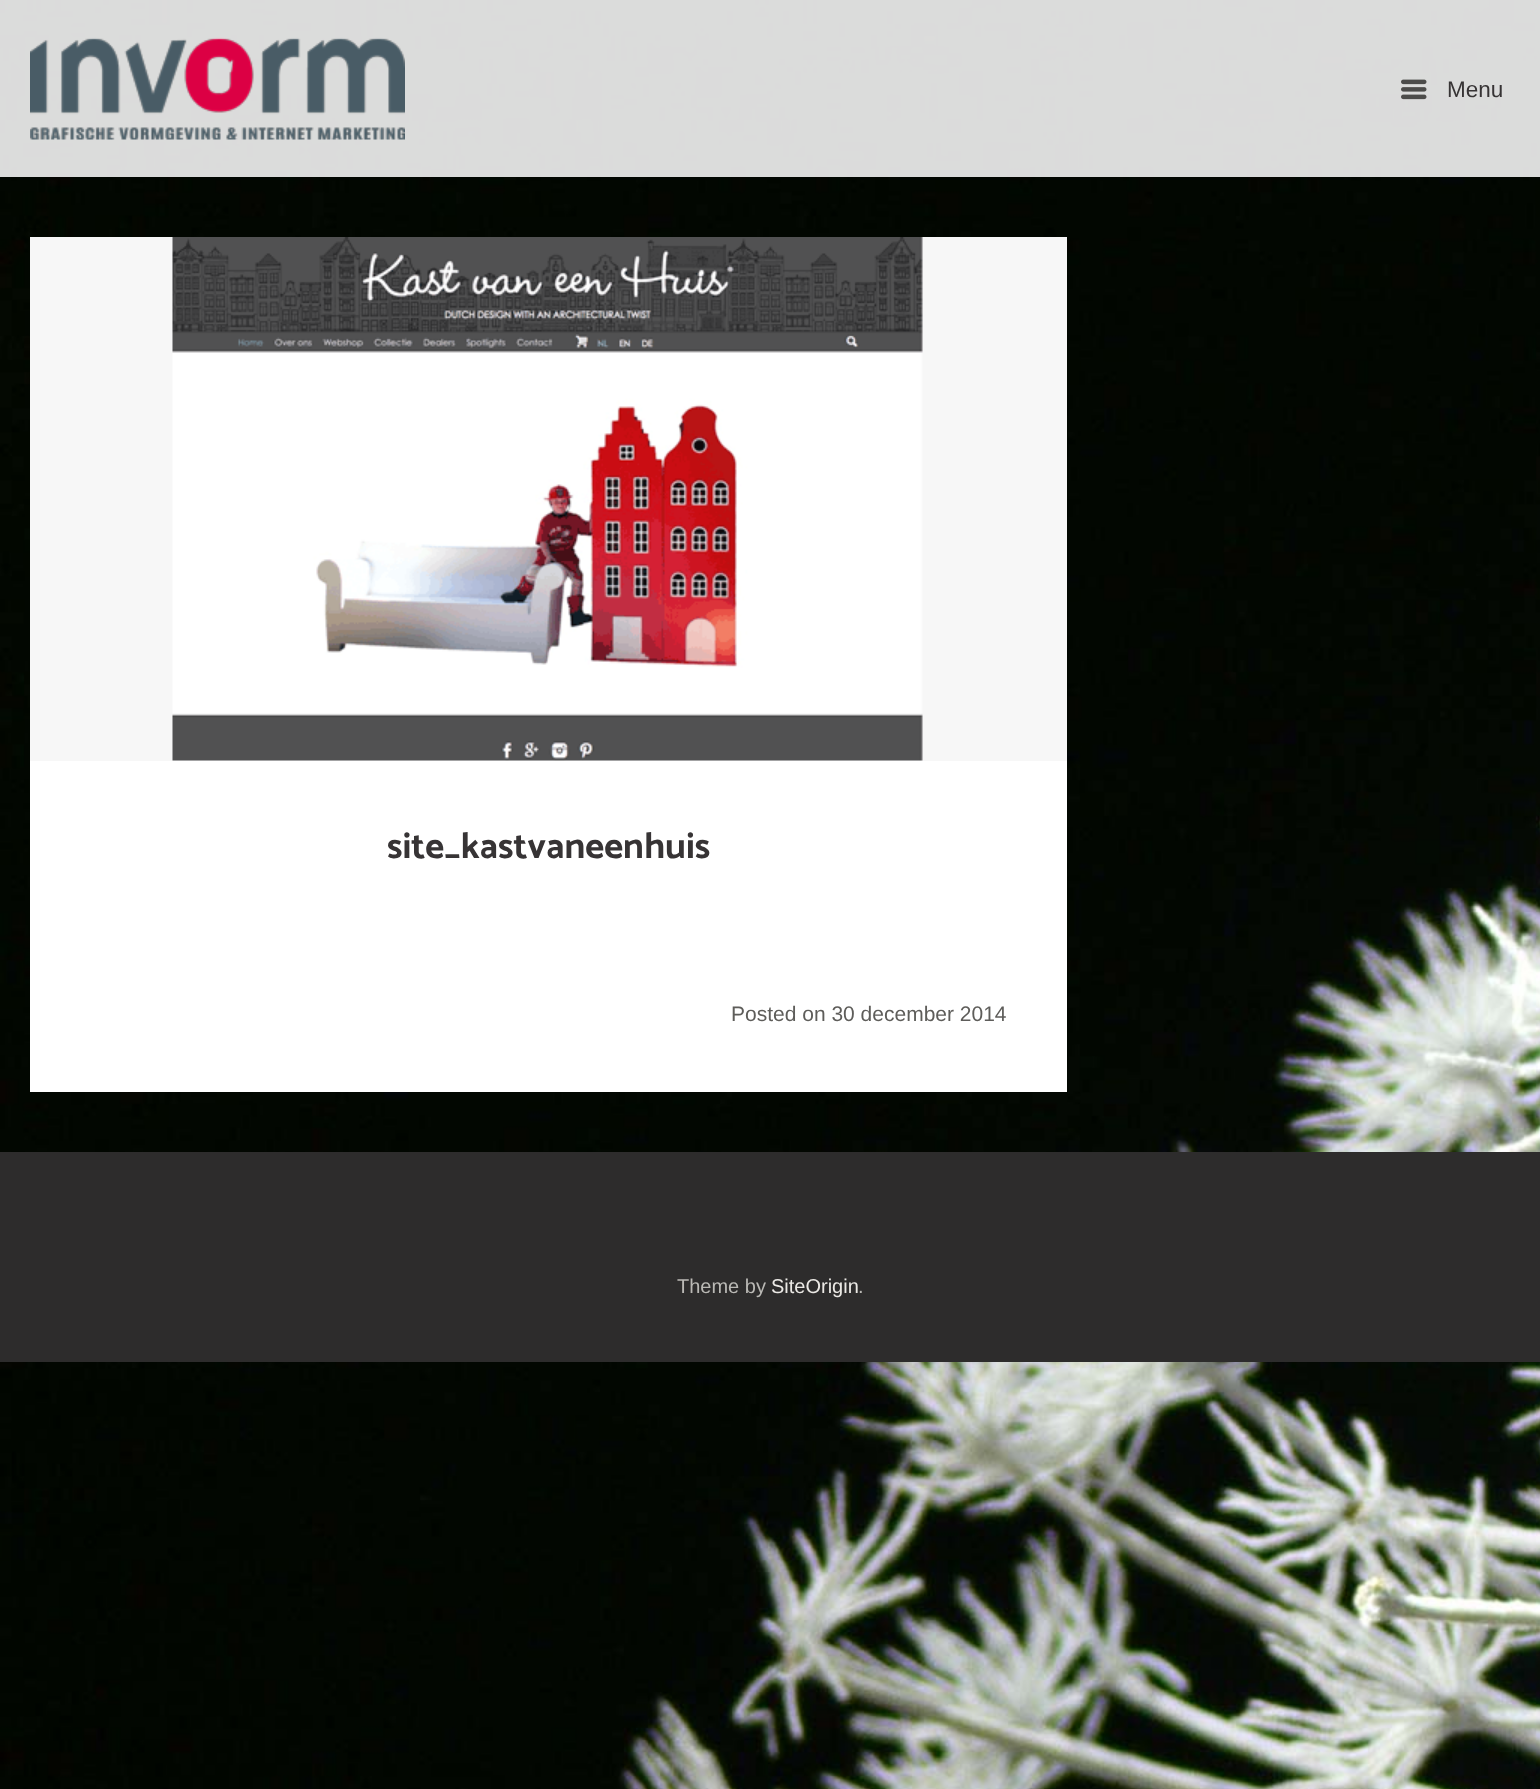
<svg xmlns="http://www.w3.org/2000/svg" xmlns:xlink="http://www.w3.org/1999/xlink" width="1540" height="1789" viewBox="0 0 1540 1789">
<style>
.cls-1{font:22.5px Liberation Sans;fill:#373435}
.cls-2{font:100 36.75px Catamaran;fill:#373435}
.cls-3{font:21px Liberation Sans;fill:#5e5d5a}
.cls-4{font:20px Liberation Sans;fill:#bab9b5}
.cls-5{font:20px Liberation Sans;fill:#ebe9e5}
</style>
<rect width="100%" height="100%" fill="#ffffff"/>
<image xlink:href="image0.png" x="0" y="0" width="1540" height="1789"/>
<rect fill="#ffffff" fill-opacity="0.86" x="0" y="0" width="1540" height="177"/>
<image xlink:href="image1.png" x="30" y="37" width="375" height="103"/>
<image xlink:href="image2.png" x="1401" y="79" width="26" height="21"/>
<rect fill="#ffffff" x="30" y="761" width="1037" height="331"/>
<rect fill="#f7f7f7" x="30" y="237" width="1037" height="524"/>
<image xlink:href="image3.png" x="172" y="237" width="751" height="524"/>
<rect fill="#2d2c2c" x="0" y="1152" width="1540" height="210"/>
<text class="cls-1" x="1447" y="97">Menu</text>
<text class="cls-2" x="387" y="858">site_kastvaneenhuis</text>
<text class="cls-3" x="731" y="1021">Posted on 30 december 2014</text>
<text class="cls-4" x="677" y="1293">Theme by</text>
<text class="cls-5" x="771" y="1293">SiteOrigin</text>
<text class="cls-4" x="858" y="1293">.</text>
</svg>
